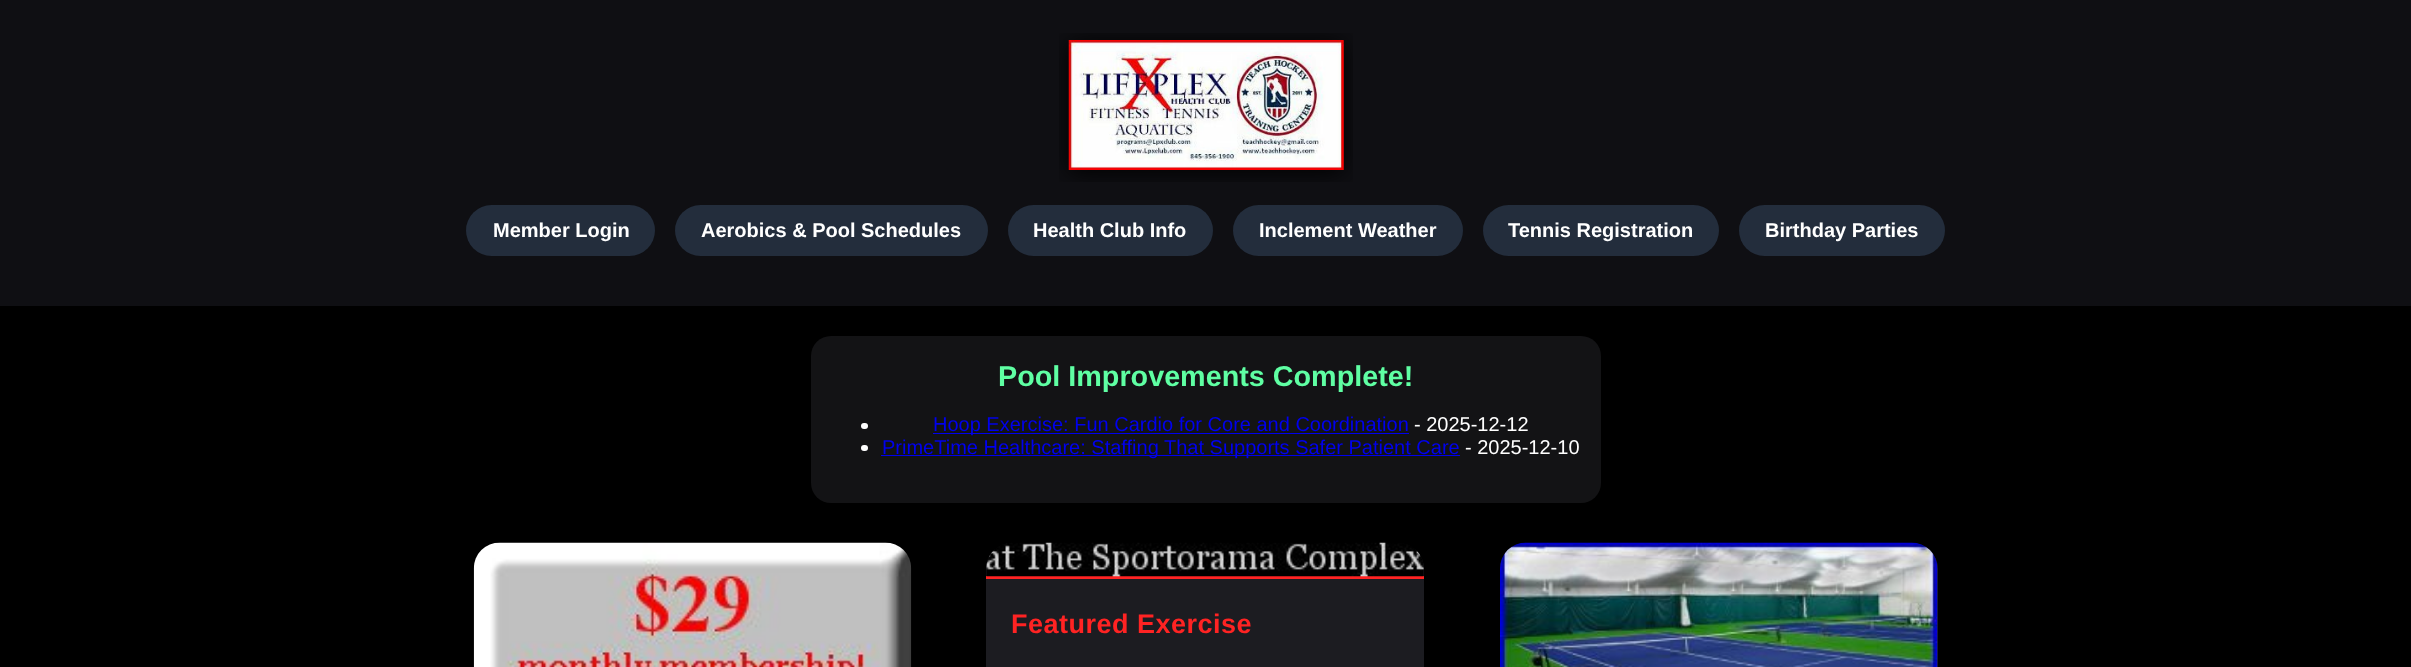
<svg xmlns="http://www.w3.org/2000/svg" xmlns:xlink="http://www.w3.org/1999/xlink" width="2411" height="667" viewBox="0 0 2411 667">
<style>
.cls-1{font:bold 20px Liberation Sans;fill:#ffffff}
.cls-2{font:bold 28.75px Liberation Sans;fill:#5fffa3}
.cls-3{font:20px Liberation Sans;fill:#0000ee}
.cls-4{font:20px Liberation Sans;fill:#ffffff}
.cls-5{font:bold 27px Liberation Sans;letter-spacing:0.5px;fill:#ff2323}
</style>
<rect width="100%" height="100%" fill="#000000"/>
<rect fill="#0f0f13" x="0" y="0" width="2411" height="306"/>
<image xlink:href="image0.png" x="1059" y="33" width="294" height="149"/>
<rect fill="#232d3c" x="466" y="205" width="189" height="51" rx="25.5"/>
<rect fill="#232d3c" x="675" y="205" width="313" height="51" rx="25.5"/>
<rect fill="#232d3c" x="1008" y="205" width="205" height="51" rx="25.5"/>
<rect fill="#232d3c" x="1233" y="205" width="230" height="51" rx="25.5"/>
<rect fill="#232d3c" x="1483" y="205" width="236" height="51" rx="25.5"/>
<rect fill="#232d3c" x="1739" y="205" width="206" height="51" rx="25.5"/>
<rect fill="#131315" x="811" y="336" width="790" height="167" rx="20"/>
<rect fill="#ffffff" x="861" y="423" width="7" height="6" rx="3"/>
<rect fill="#0000ee" x="933" y="433" width="476" height="1"/>
<rect fill="#ffffff" x="861" y="445" width="7" height="6" rx="3"/>
<rect fill="#0000ee" x="881" y="455" width="579" height="1"/>
<image xlink:href="image1.png" x="473" y="542" width="439" height="125"/>
<rect fill="#1c1c21" x="986" y="543" width="438" height="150" rx="26"/>
<rect fill="#ff2323" x="986" y="576" width="438" height="3"/>
<image xlink:href="image2.png" x="986" y="542" width="438" height="35"/>
<rect fill="#1c1c21" x="1500" y="543" width="438" height="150" rx="26"/>
<image xlink:href="image3.png" x="1500" y="542" width="438" height="125"/>
<text class="cls-1" x="493" y="237">Member Login</text>
<text class="cls-1" x="701" y="237">Aerobics &amp; Pool Schedules</text>
<text class="cls-1" x="1033" y="237">Health Club Info</text>
<text class="cls-1" x="1259" y="237">Inclement Weather</text>
<text class="cls-1" x="1508" y="237">Tennis Registration</text>
<text class="cls-1" x="1765" y="237">Birthday Parties</text>
<text class="cls-2" x="998" y="386">Pool Improvements Complete!</text>
<text class="cls-3" x="933" y="431">Hoop Exercise: Fun Cardio for Core and Coordination</text>
<text class="cls-4" x="1414" y="431">- 2025-12-12</text>
<text class="cls-3" x="882" y="454">PrimeTime Healthcare: Staffing That Supports Safer Patient Care</text>
<text class="cls-4" x="1465" y="454">- 2025-12-10</text>
<text class="cls-5" x="1011" y="633">Featured Exercise</text>
</svg>
